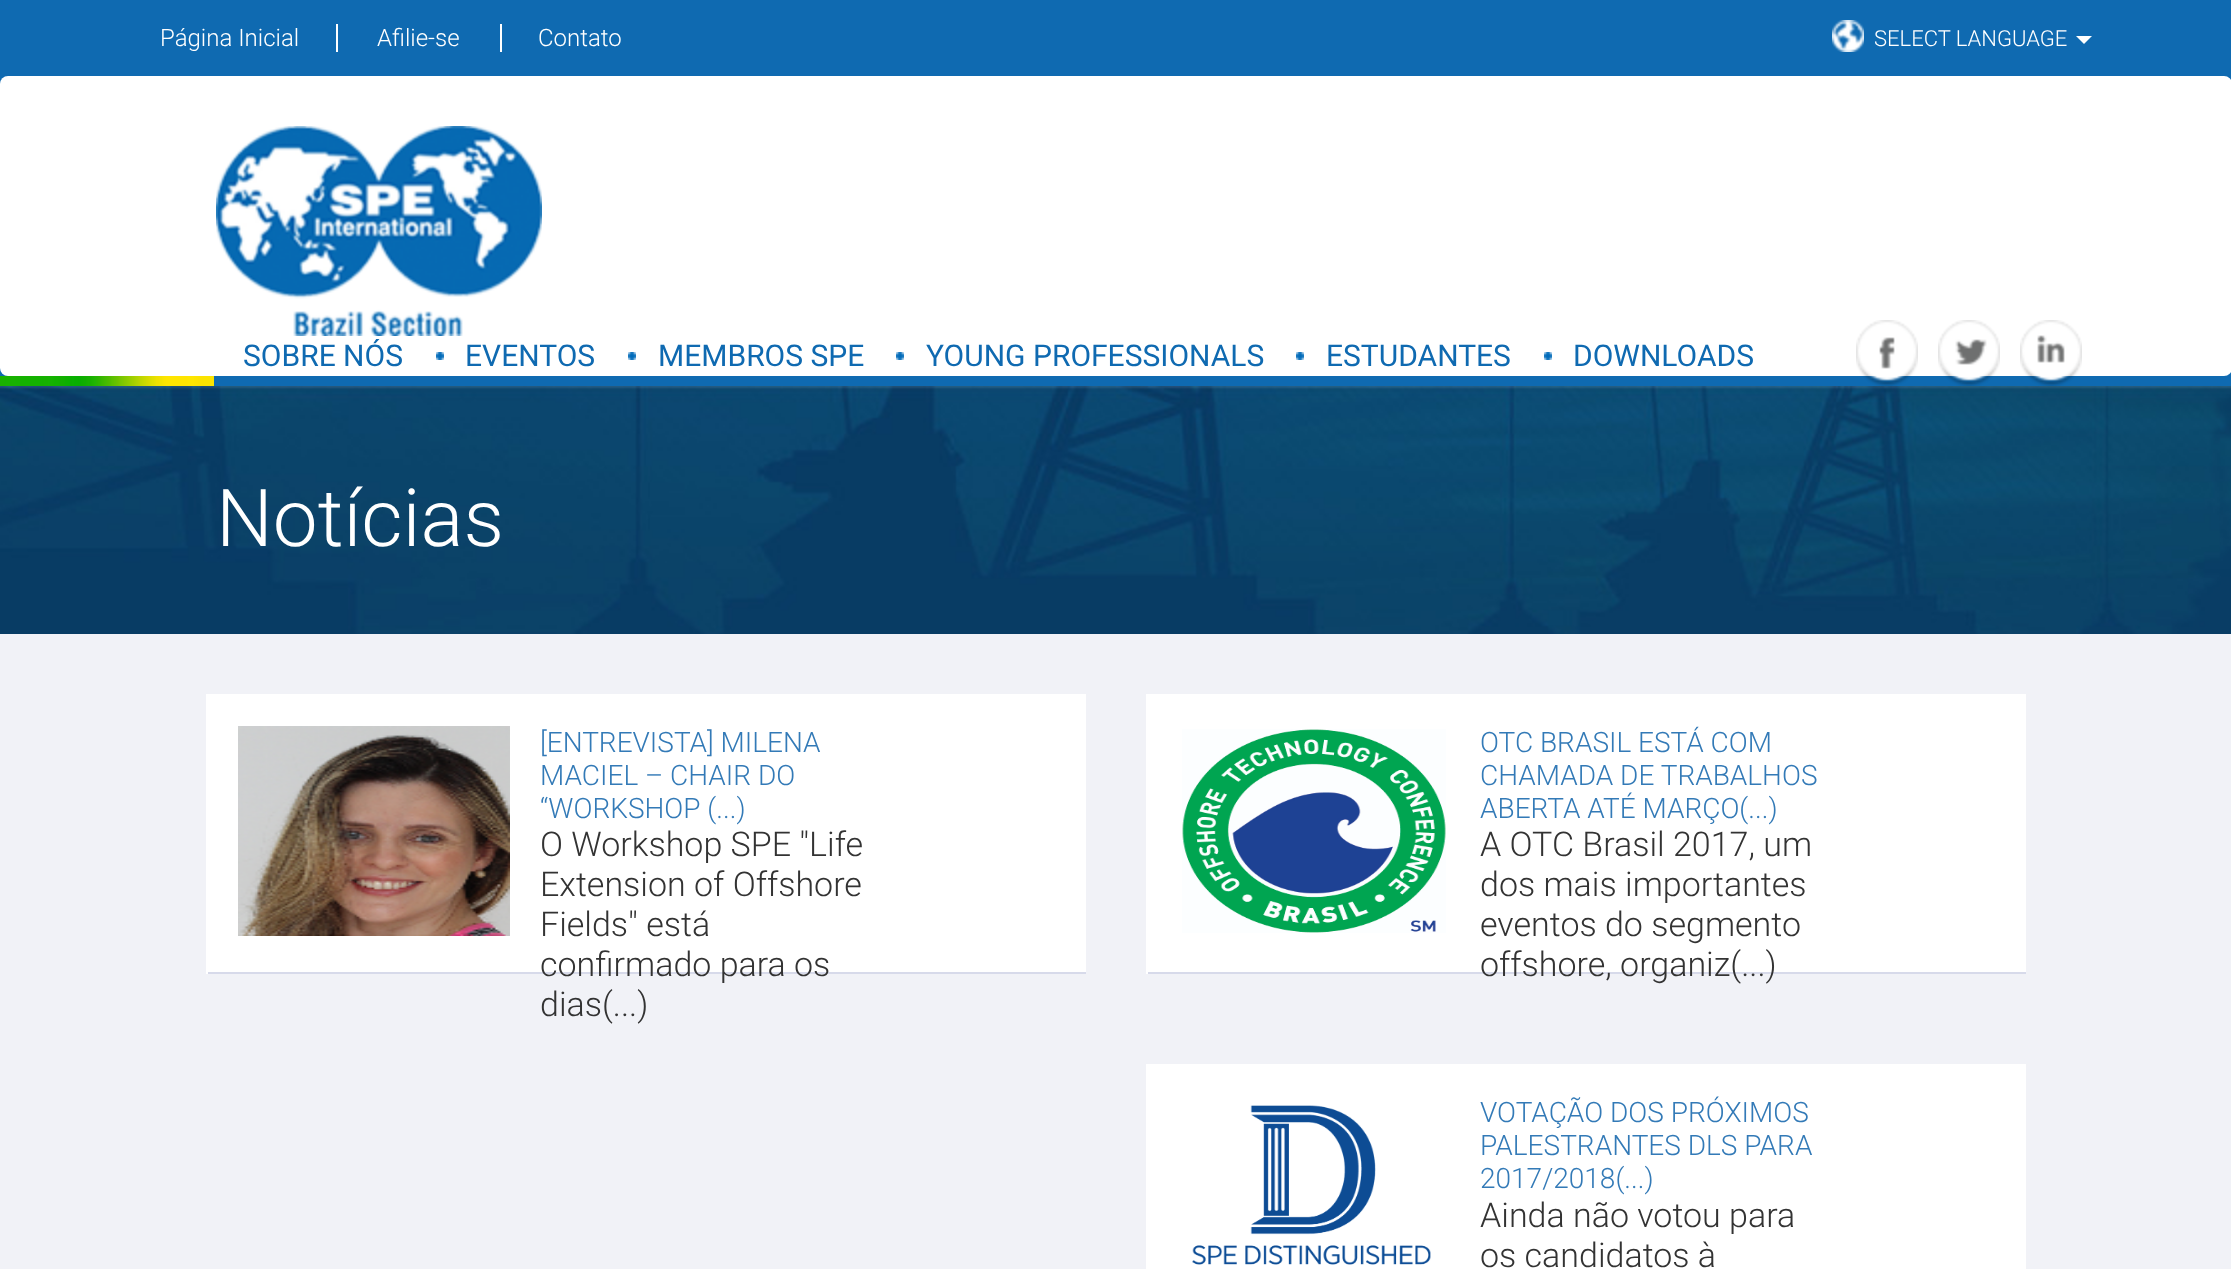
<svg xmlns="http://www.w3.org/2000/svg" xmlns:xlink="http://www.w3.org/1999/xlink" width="2231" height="1269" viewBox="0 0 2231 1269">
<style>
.cls-1{font:300 24px Roboto;fill:#ffffff}
.cls-2{font:300 22px Roboto;fill:#ffffff}
.cls-3{font:30px Roboto;fill:#0f6ab1}
.cls-4{font:300 80px Roboto;fill:#ffffff}
.cls-5{font:300 28px Roboto;fill:#337ab7}
.cls-6{font:300 34px Roboto;fill:#333333}
</style>
<rect width="100%" height="100%" fill="#f1f2f7"/>
<rect fill="#0f6ab1" x="0" y="0" width="2231" height="386"/>
<rect fill="#ffffff" x="500" y="24" width="2" height="28"/>
<rect fill="#ffffff" x="336" y="24" width="2" height="28"/>
<image xlink:href="image0.png" x="1832" y="20" width="32" height="32"/>
<path fill="#ffffff" d="M2076 36H2092L2084 44Z"/>
<rect fill="#ffffff" x="0" y="76" width="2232" height="300" rx="8"/>
<image xlink:href="image1.png" x="216" y="126" width="326" height="210"/>
<image xlink:href="image2.png" x="436" y="352" width="8" height="8"/>
<image xlink:href="image2.png" x="628" y="352" width="8" height="8"/>
<image xlink:href="image2.png" x="896" y="352" width="8" height="8"/>
<image xlink:href="image2.png" x="1296" y="352" width="8" height="8"/>
<image xlink:href="image2.png" x="1544" y="352" width="8" height="8"/>
<image xlink:href="image3.png" x="1856" y="320" width="62" height="66"/>
<image xlink:href="image4.png" x="1938" y="320" width="62" height="66"/>
<image xlink:href="image5.png" x="2020" y="320" width="62" height="66"/>
<image xlink:href="image6.png" x="0" y="376" width="214" height="10"/>
<image xlink:href="image7.png" x="0" y="386" width="2231" height="248"/>
<rect fill="#ffffff" x="208" y="694" width="878" height="278"/>
<rect fill="#d7daea" x="206" y="972" width="880" height="2"/>
<rect fill="#ffffff" x="206" y="694" width="2" height="280"/>
<image xlink:href="image8.png" x="238" y="726" width="272" height="210"/>
<rect fill="#ffffff" x="1148" y="694" width="878" height="278"/>
<rect fill="#d7daea" x="1146" y="972" width="880" height="2"/>
<rect fill="#ffffff" x="1146" y="694" width="2" height="280"/>
<image xlink:href="image9.png" x="1182" y="729" width="264" height="204"/>
<rect fill="#ffffff" x="1146" y="1064" width="880" height="205"/>
<image xlink:href="image10.png" x="1192" y="1105" width="239" height="160"/>
<text class="cls-1" x="160" y="46">Página Inicial</text>
<text class="cls-1" x="377" y="46">Afilie-se</text>
<text class="cls-1" x="538" y="46">Contato</text>
<text class="cls-2" x="1874" y="46">SELECT LANGUAGE</text>
<text class="cls-3" x="243" y="366">SOBRE NÓS</text>
<text class="cls-3" x="465" y="366">EVENTOS</text>
<text class="cls-3" x="658" y="366">MEMBROS SPE</text>
<text class="cls-3" x="926" y="366">YOUNG PROFESSIONALS</text>
<text class="cls-3" x="1326" y="366">ESTUDANTES</text>
<text class="cls-3" x="1573" y="366">DOWNLOADS</text>
<text class="cls-4" x="216" y="546">Notícias</text>
<text class="cls-5"><tspan x="540" y="752">[ENTREVISTA] MILENA</tspan><tspan x="540" y="785">MACIEL – CHAIR DO</tspan><tspan x="540" y="818">“WORKSHOP (...)</tspan></text>
<text class="cls-6"><tspan x="540" y="856">O Workshop SPE "Life</tspan><tspan x="540" y="896">Extension of Offshore</tspan><tspan x="540" y="936">Fields" está</tspan><tspan x="540" y="976">confirmado para os</tspan><tspan x="540" y="1016">dias(...)</tspan></text>
<text class="cls-5"><tspan x="1480" y="752">OTC BRASIL ESTÁ COM</tspan><tspan x="1480" y="785">CHAMADA DE TRABALHOS</tspan><tspan x="1480" y="818">ABERTA ATÉ MARÇO(...)</tspan></text>
<text class="cls-6"><tspan x="1480" y="856">A OTC Brasil 2017, um</tspan><tspan x="1480" y="896">dos mais importantes</tspan><tspan x="1480" y="936">eventos do segmento</tspan><tspan x="1480" y="976">offshore, organiz(...)</tspan></text>
<text class="cls-5"><tspan x="1480" y="1122">VOTAÇÃO DOS PRÓXIMOS</tspan><tspan x="1480" y="1155">PALESTRANTES DLS PARA</tspan><tspan x="1480" y="1188">2017/2018(...)</tspan></text>
<text class="cls-6"><tspan x="1480" y="1227">Ainda não votou para</tspan><tspan x="1480" y="1267">os candidatos à</tspan></text>
</svg>
